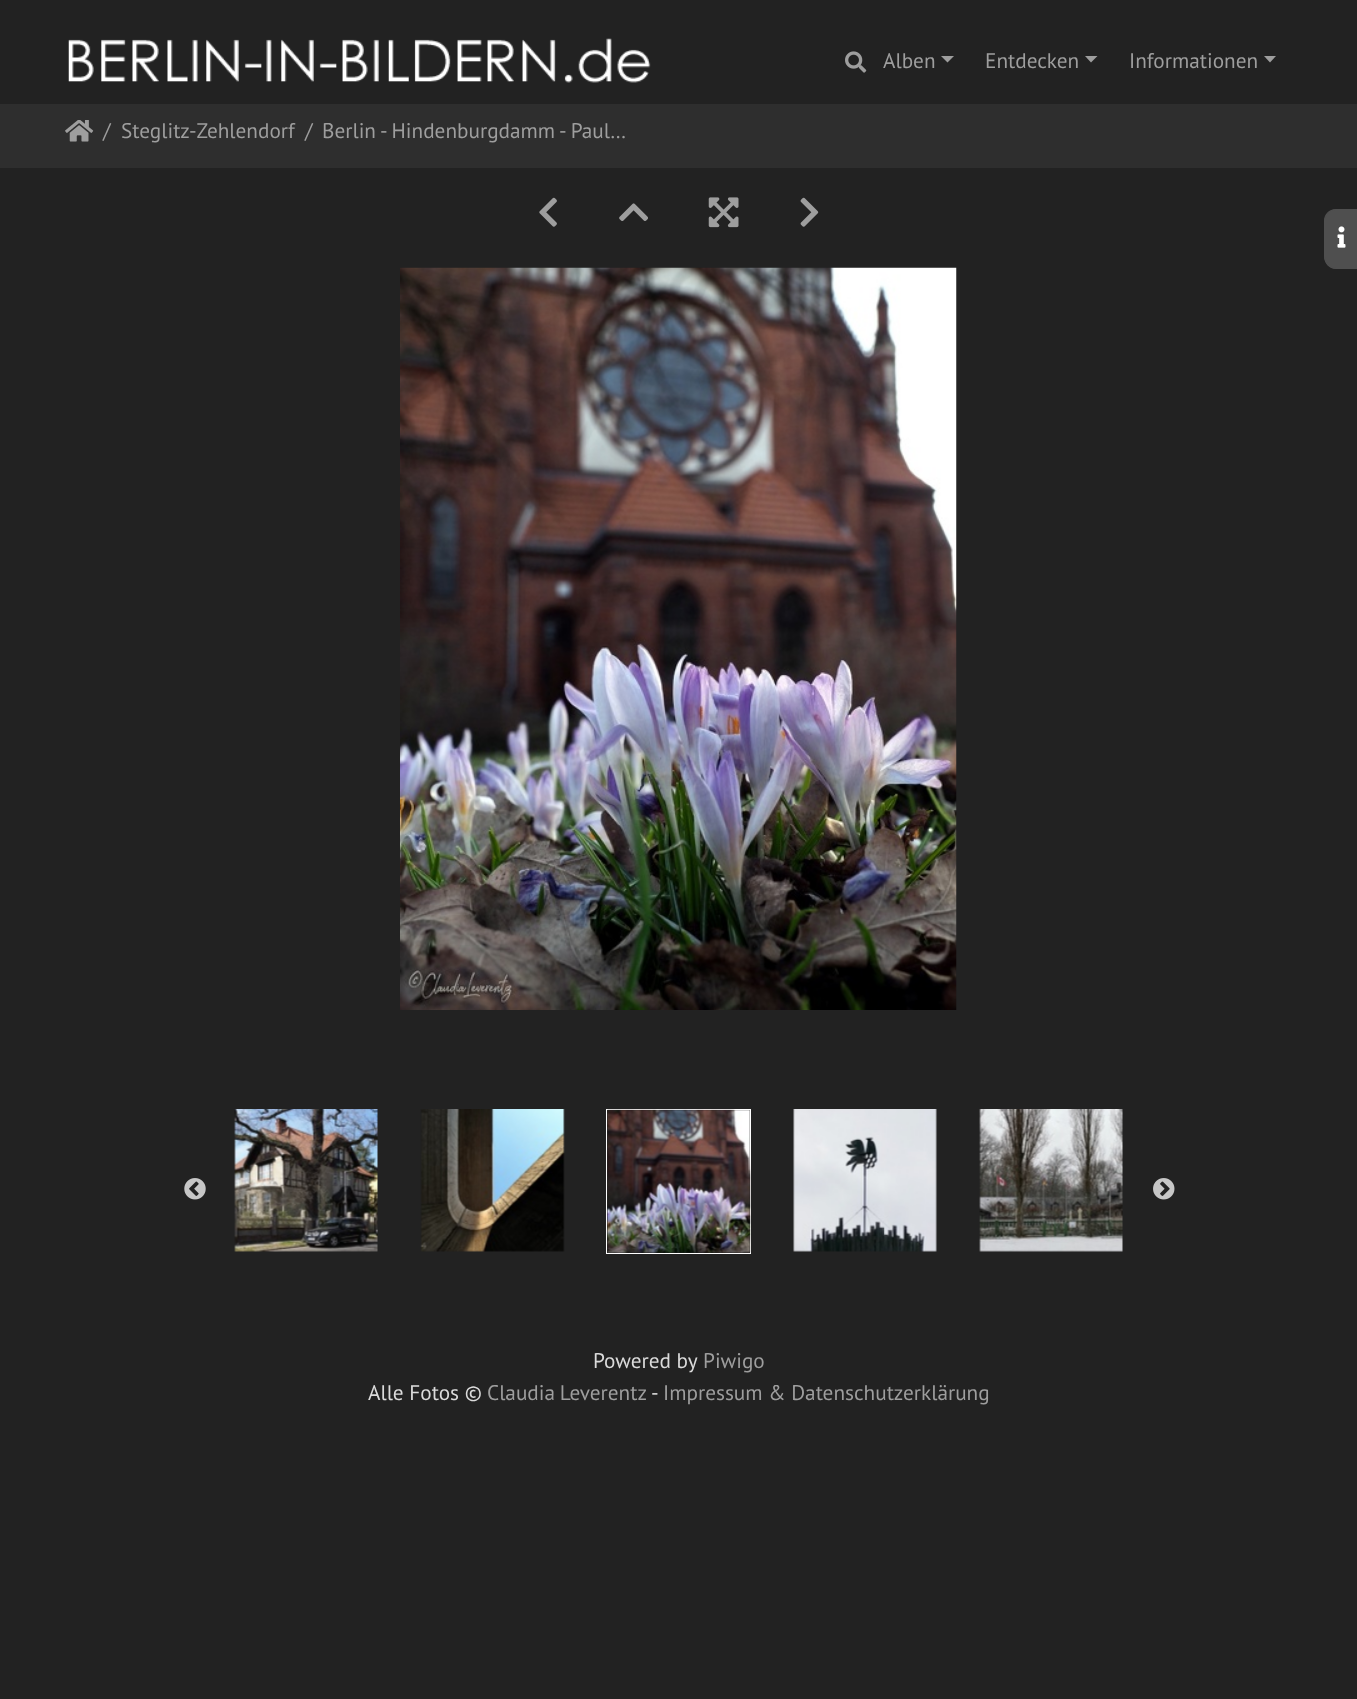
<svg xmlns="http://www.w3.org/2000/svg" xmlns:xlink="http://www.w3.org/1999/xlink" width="1357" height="1699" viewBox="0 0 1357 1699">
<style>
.cls-1{font:21.25px PT Sans;fill:#9e9e9e}
.cls-2{font:21.25px PT Sans;fill:#dbdbdb}
</style>
<rect width="100%" height="100%" fill="#222222"/>
<image xlink:href="image0.png" x="68" y="38" width="583" height="45"/>
<image xlink:href="image1.png" x="845" y="51" width="22" height="22"/>
<path fill="#9e9e9e" d="M941 56H954L947.5 62.5Z"/>
<path fill="#9e9e9e" d="M1085 56H1097.5L1091 62.5Z"/>
<path fill="#9e9e9e" d="M1264 56H1276L1270 62.5Z"/>
<rect fill="#2e2e2e" x="0" y="104" width="1357" height="64"/>
<image xlink:href="image2.png" x="65" y="120" width="29" height="22"/>
<image xlink:href="image3.png" x="539" y="197" width="18" height="30"/>
<image xlink:href="image4.png" x="619" y="203" width="29" height="18"/>
<image xlink:href="image5.png" x="708" y="197" width="31" height="31"/>
<image xlink:href="image6.png" x="800" y="197" width="19" height="30"/>
<path fill="#4f4f4f" d="M1337 209H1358V269H1337C1330 269 1324 263 1324 256V222C1324 215 1330 209 1337 209Z"/>
<path fill="#4f4f4f" fill-rule="evenodd" d="M1336 209H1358V269H1336C1329 269 1324 263 1324 256V221C1324 214 1329 209 1336 209ZM1336 210H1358V268H1336C1330 268 1325 262 1325 256V221C1325 215 1330 210 1336 210Z"/>
<image xlink:href="image7.png" x="1337" y="226" width="9" height="22"/>
<image xlink:href="image8.png" x="400" y="267" width="557" height="743"/>
<image xlink:href="image9.png" x="184" y="1178" width="22" height="22"/>
<image xlink:href="image10.png" x="234" y="1109" width="144" height="143"/>
<image xlink:href="image11.png" x="420" y="1109" width="145" height="143"/>
<rect fill="none" stroke="#ffffff" x="606.5" y="1109.5" width="144" height="144"/>
<image xlink:href="image12.png" x="607" y="1109" width="144" height="144"/>
<image xlink:href="image13.png" x="793" y="1109" width="144" height="143"/>
<image xlink:href="image14.png" x="979" y="1109" width="144" height="143"/>
<image xlink:href="image15.png" x="1153" y="1178" width="22" height="22"/>
<text class="cls-1" x="883" y="68">Alben</text>
<text class="cls-1" x="985" y="68">Entdecken</text>
<text class="cls-1" x="1129" y="68">Informationen</text>
<text class="cls-1" x="103" y="138">/</text>
<text class="cls-1" x="121" y="138">Steglitz-Zehlendorf</text>
<text class="cls-1" x="305" y="138">/</text>
<text class="cls-1" x="322" y="138">Berlin - Hindenburgdamm - Paul…</text>
<text class="cls-2" x="593" y="1368">Powered by</text>
<text class="cls-1" x="703" y="1368">Piwigo</text>
<text class="cls-2" x="368" y="1400">Alle Fotos ©</text>
<text class="cls-1" x="487" y="1400" word-spacing="-1">Claudia Leverentz</text>
<text class="cls-2" x="651" y="1400">-</text>
<text class="cls-1" x="663" y="1400">Impressum &amp; Datenschutzerklärung</text>
</svg>
